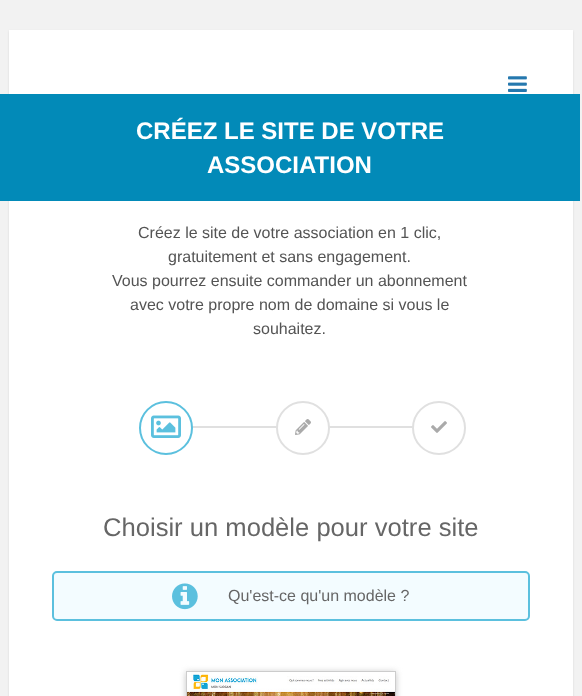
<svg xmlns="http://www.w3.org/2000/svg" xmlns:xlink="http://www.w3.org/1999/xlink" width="582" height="696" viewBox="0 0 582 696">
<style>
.cls-1{font:bold 24px Liberation Sans;fill:#ffffff}
.cls-2{font:16px Liberation Sans;fill:#545454}
.cls-3{font:25.6px Liberation Sans;fill:#666666}
.cls-4{font:16px Liberation Sans;fill:#666666}
</style>
<rect width="100%" height="100%" fill="#f2f2f2"/>
<rect fill="#000000" fill-opacity="0.1" filter="blur(1px)" x="9" y="31" width="564" height="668"/>
<rect fill="#ffffff" x="9" y="30" width="564" height="666"/>
<rect fill="#028ab8" filter="blur(0.5px)" x="0" y="94" width="580" height="107"/>
<image xlink:href="image0.png" x="508" y="76" width="19" height="16"/>
<rect fill="#028ab8" x="0" y="94" width="580" height="107"/>
<rect fill="#e0e0e0" x="192" y="426" width="221" height="2"/>
<circle fill="#ffffff" stroke="#5bc0de" stroke-width="2" cx="166" cy="428" r="26"/>
<image xlink:href="image1.png" x="151" y="415" width="30" height="23"/>
<circle fill="#ffffff" stroke="#e0e0e0" stroke-width="2" cx="303" cy="428" r="26"/>
<image xlink:href="image2.png" x="295" y="419" width="16" height="16"/>
<circle fill="#ffffff" stroke="#e0e0e0" stroke-width="2" cx="439" cy="428" r="26"/>
<image xlink:href="image3.png" x="431" y="421" width="16" height="12"/>
<rect fill="#f3fcff" stroke="#5bc0de" stroke-width="2" x="53" y="572" width="476" height="48" rx="4"/>
<image xlink:href="image4.png" x="172" y="583" width="26" height="27"/>
<rect fill="#c3c3c3" filter="blur(3px)" x="186" y="672" width="210" height="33"/>
<rect fill="none" stroke="#cccccc" x="186.5" y="671.5" width="209" height="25"/>
<image xlink:href="image5.png" x="187" y="672" width="208" height="24"/>
<text class="cls-1" x="136" y="139">CRÉEZ LE SITE DE VOTRE</text>
<text class="cls-1" x="207" y="173">ASSOCIATION</text>
<text class="cls-2" x="138" y="238">Créez le site de votre association en 1 clic,</text>
<text class="cls-2" x="168" y="262">gratuitement et sans engagement.</text>
<text class="cls-2" x="112" y="286">Vous pourrez ensuite commander un abonnement</text>
<text class="cls-2" x="130" y="310">avec votre propre nom de domaine si vous le</text>
<text class="cls-2" x="253" y="334">souhaitez.</text>
<text class="cls-3" x="103" y="536">Choisir un modèle pour votre site</text>
<text class="cls-4" x="228" y="601">Qu'est-ce qu'un modèle ?</text>
</svg>
